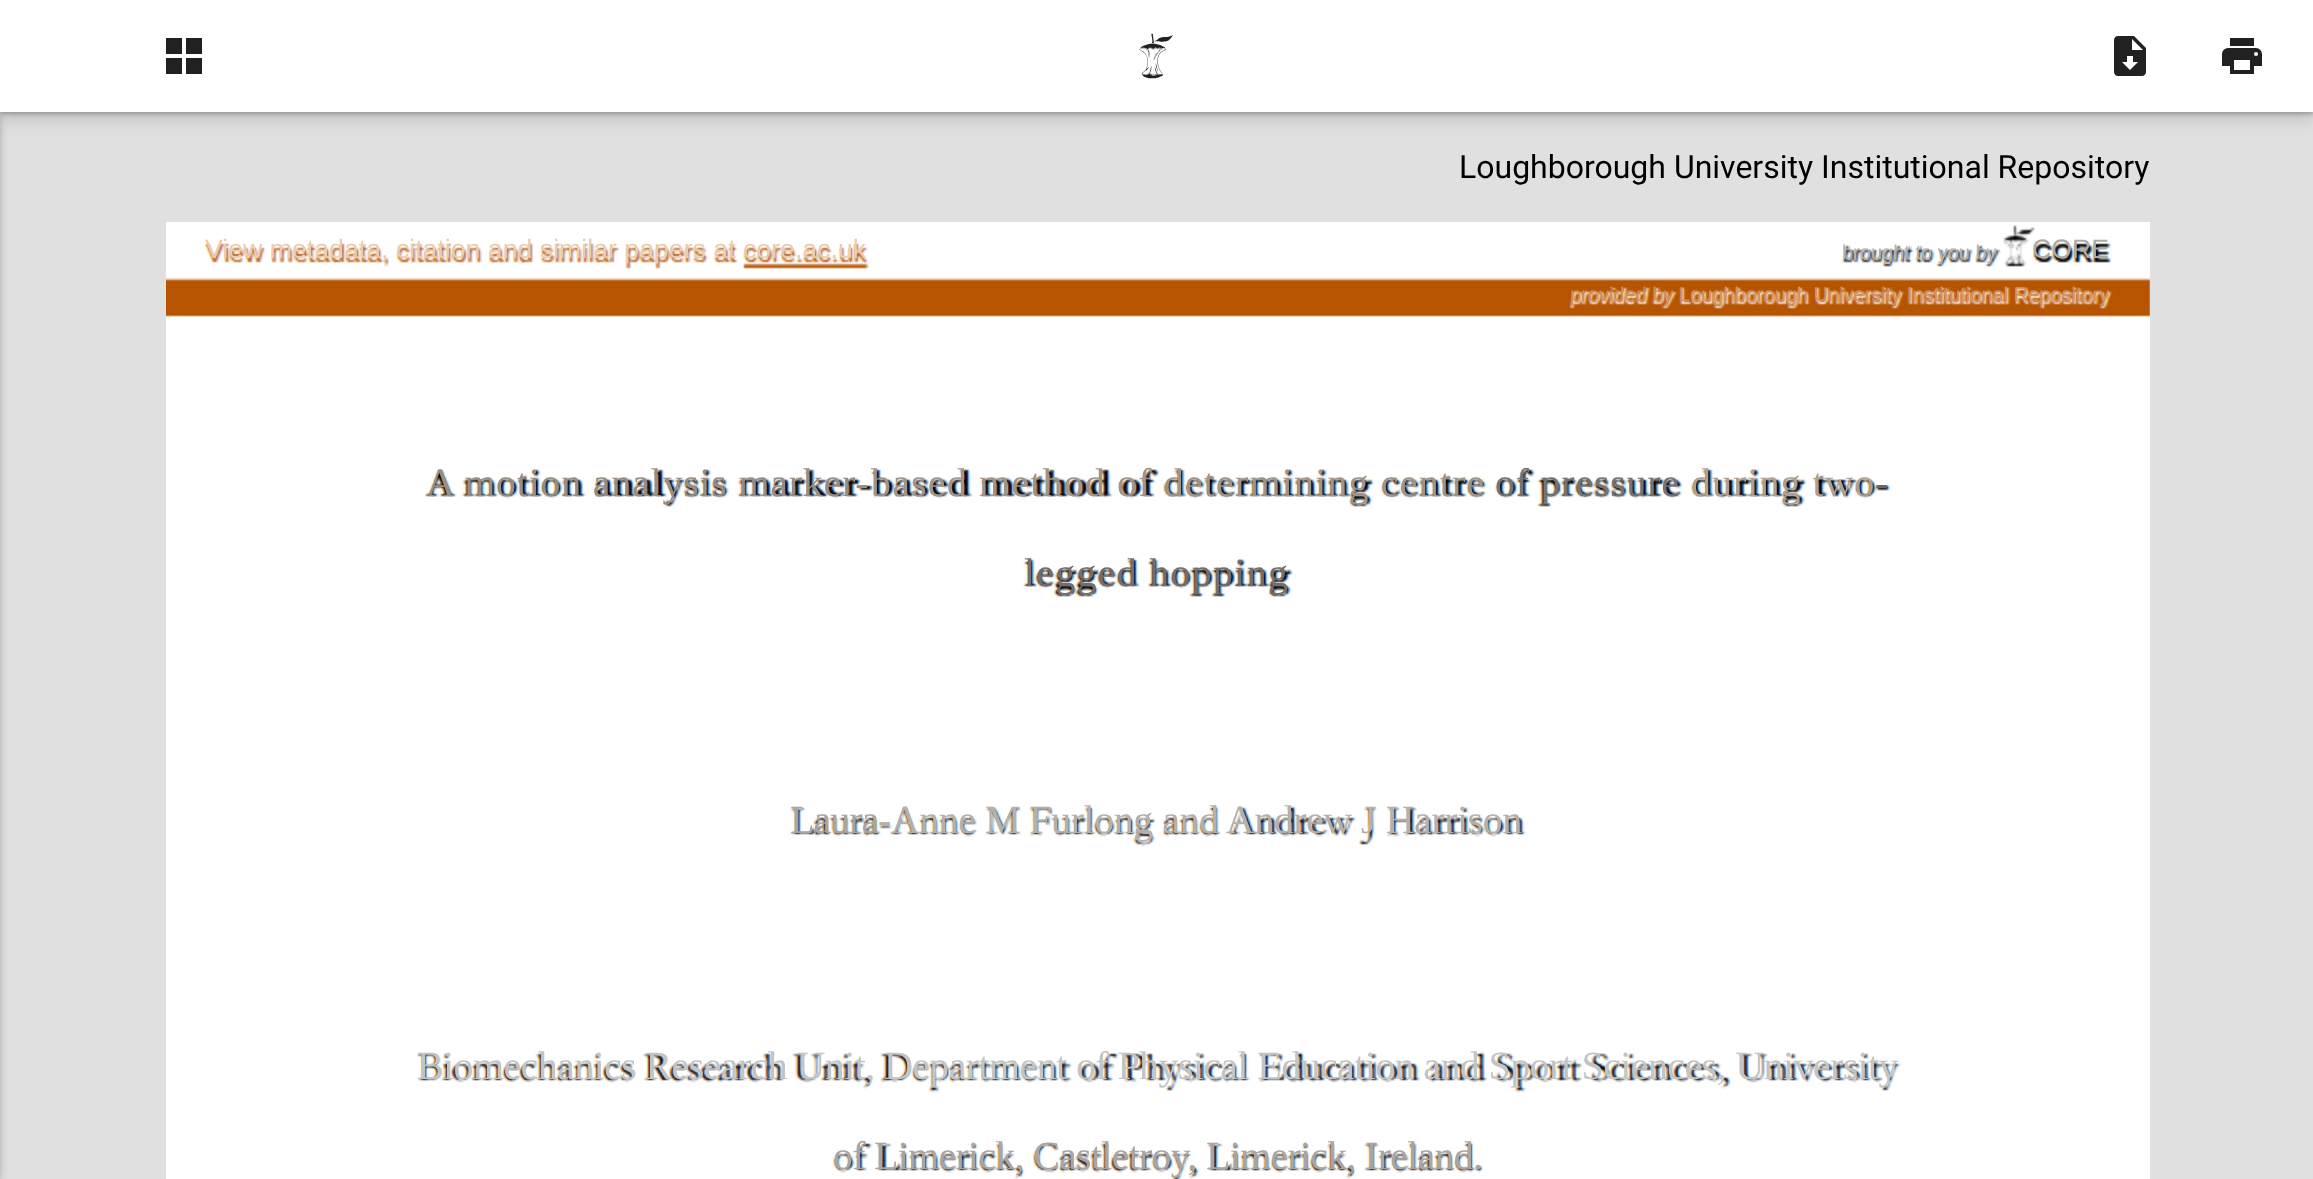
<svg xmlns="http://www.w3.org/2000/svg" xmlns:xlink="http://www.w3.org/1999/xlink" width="2313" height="1179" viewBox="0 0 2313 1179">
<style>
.cls-1{font:32px Roboto;fill:#000000}
.cls-2{font:26.7px Liberation Sans;fill:#ebccb1}
.cls-3{font:20px Liberation Sans;fill:#b7b0aa}
.cls-4{font:26.7px Liberation Sans;fill:#b0aaa5}
.cls-5{font:20px Liberation Sans;fill:#cd8e60}
.cls-6{font:20px Liberation Sans;fill:#cf9366}
.cls-7{font:40px Liberation Serif;letter-spacing:0.75px;fill:#998c80}
.cls-8{font:40px Liberation Serif;letter-spacing:1.15px;fill:#a29384}
.cls-9{font:40px Liberation Serif;letter-spacing:0.75px;fill:#797272}
.cls-10{font:40px Liberation Serif;letter-spacing:1px;fill:#b09f8e}
.cls-11{font:40px Liberation Serif;fill:#6c6561}
.cls-12{font:40px Liberation Serif;letter-spacing:1.25px;fill:#756c6b}
.cls-13{font:40px Liberation Serif;letter-spacing:-1px;fill:#aaa5a3}
.cls-14{font:40px Liberation Serif;letter-spacing:-0.5px;fill:#b7b0aa}
.cls-15{font:40px Liberation Serif;letter-spacing:-0.62px;fill:#c3c4c5}
.cls-16{font:40px Liberation Serif;letter-spacing:-0.75px;fill:#aaa5a3}
</style>
<rect width="100%" height="100%" fill="#e0e0e0"/>
<rect fill="#000000" fill-opacity="0.13" filter="blur(8px)" x="0" y="8" width="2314" height="112"/>
<rect fill="#000000" fill-opacity="0.26" filter="blur(2px)" x="0" y="2" width="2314" height="112"/>
<rect fill="#000000" fill-opacity="0.25" filter="blur(4px)" x="-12" y="112" width="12" height="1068"/>
<rect fill="#ffffff" x="0" y="0" width="2313" height="112"/>
<image xlink:href="image0.png" x="166" y="38" width="36" height="36"/>
<image xlink:href="image1.png" x="1139" y="33" width="34" height="46"/>
<image xlink:href="image2.png" x="2114" y="36" width="32" height="40"/>
<image xlink:href="image3.png" x="2222" y="38" width="40" height="36"/>
<rect fill="#ffffff" x="166" y="222" width="1984" height="3"/>
<image xlink:href="image4.png" x="166" y="225" width="1984" height="954"/>
<text class="cls-1" x="1459" y="178">Loughborough University Institutional Repository</text>
<text class="cls-2" x="205" y="258">View metadata, citation and similar papers at core.ac.uk</text>
<text class="cls-3" x="1842" y="259">brought to you by</text>
<text class="cls-4" x="2032" y="258">CORE</text>
<text class="cls-5" x="1570" y="301">provided by</text>
<text class="cls-6" x="1679" y="301">Loughborough University Institutional Repository</text>
<text class="cls-7" x="426" y="496">A motion analysis marker-</text>
<text class="cls-8" x="871" y="496">based method of determining centre</text>
<text class="cls-9" x="1495" y="496">of pressure</text>
<text class="cls-10" x="1691" y="496">during two</text>
<text class="cls-11" x="1875" y="496">-</text>
<text class="cls-12" x="1024" y="586">legged hopping</text>
<text class="cls-13" x="790" y="833">Laura</text>
<text class="cls-14" x="878" y="833">-Anne M Furlong and Andrew J Harrison</text>
<text class="cls-15" x="417" y="1079">Biomechanics Research Unit, Department of Physical Education and Sport Sciences, University</text>
<text class="cls-16" x="833" y="1169">of Limerick, Castletroy, Limerick, Ireland.</text>
</svg>
